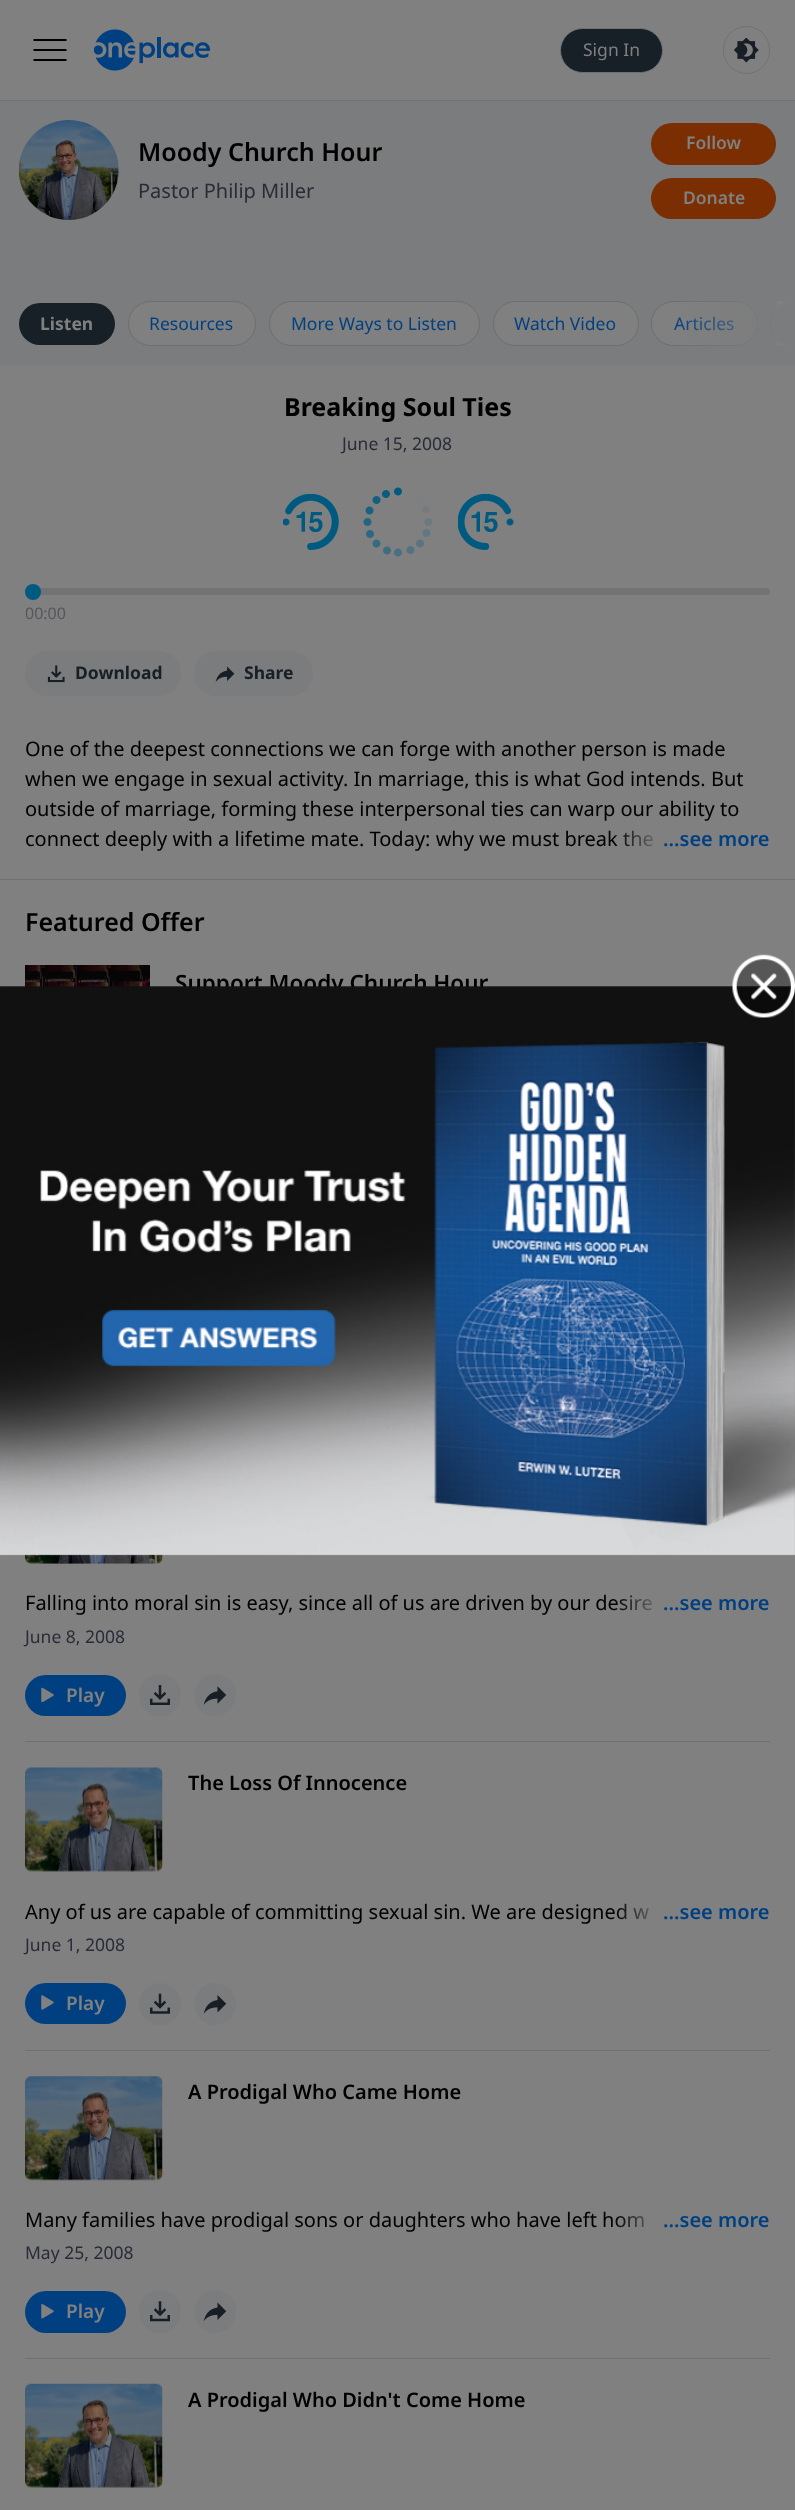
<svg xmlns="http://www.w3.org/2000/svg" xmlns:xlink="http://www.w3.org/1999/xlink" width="795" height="2510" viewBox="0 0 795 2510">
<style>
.cls-1{font:17.5px Noto Sans;fill:#808080}
.cls-2{font:600 25px Noto Sans;fill:#000000}
.cls-3{font:20px Noto Sans;fill:#292c38}
.cls-4{font:600 17.5px Noto Sans;fill:#808080}
.cls-5{font:bold 17.5px Noto Sans;fill:#808080}
.cls-6{font:17.5px Noto Sans;fill:#004080}
.cls-7{font:bold 25px Noto Sans;fill:#000000}
.cls-8{font:17.5px Noto Sans;fill:#292c38}
.cls-9{font:16px Noto Sans;fill:#54575c}
.cls-10{font:bold 17.5px Noto Sans;fill:#171f27}
.cls-11{font:20px Noto Sans;fill:#000000}
.cls-12{font:600 20px Noto Sans;fill:#004080}
.cls-13{font:600 22.5px Noto Sans;fill:#000000}
.cls-14{font:600 19px Noto Sans;fill:#808080}
.cls-15{font:600 20px Noto Sans;fill:#000000}
</style>
<defs>
<clipPath id="clip1"><rect x="19" y="301" width="757" height="45"/></clipPath>
<linearGradient id="g1" gradientUnits="userSpaceOnUse" x1="670" y1="324" x2="795" y2="324"><stop offset="0" stop-color="#7b7c7d" stop-opacity="0"/><stop offset="1" stop-color="#7b7c7d"/></linearGradient>
<linearGradient id="g2" gradientUnits="userSpaceOnUse" x1="614" y1="839" x2="770" y2="839"><stop offset="0" stop-color="#808080" stop-opacity="0"/><stop offset="0.32" stop-color="#808080"/></linearGradient>
<linearGradient id="g3" gradientUnits="userSpaceOnUse" x1="614" y1="1603" x2="770" y2="1603"><stop offset="0" stop-color="#808080" stop-opacity="0"/><stop offset="0.32" stop-color="#808080"/></linearGradient>
<linearGradient id="g4" gradientUnits="userSpaceOnUse" x1="614" y1="1911" x2="770" y2="1911"><stop offset="0" stop-color="#808080" stop-opacity="0"/><stop offset="0.32" stop-color="#808080"/></linearGradient>
<linearGradient id="g5" gradientUnits="userSpaceOnUse" x1="614" y1="2219" x2="770" y2="2219"><stop offset="0" stop-color="#808080" stop-opacity="0"/><stop offset="0.32" stop-color="#808080"/></linearGradient>
</defs>
<rect width="100%" height="100%" fill="#808080"/>
<rect fill="#6f7274" x="0" y="100" width="795" height="1"/>
<path fill="#000000" d="M33.5 61V59H66.5V61ZM33.5 51V49H66.5V51ZM33.5 41V39H66.5V41Z"/>
<image xlink:href="image0.png" x="94" y="29" width="116" height="42"/>
<rect fill="#171f27" stroke="#6f7274" x="560.5" y="28.5" width="102" height="44" rx="22"/>
<rect fill="none" stroke="#6f7274" x="723.5" y="26.5" width="46" height="47" rx="23"/>
<image xlink:href="image1.png" x="734" y="38" width="25" height="25"/>
<rect fill="#7b7c7d" x="0" y="101" width="795" height="264"/>
<image xlink:href="image2.png" x="18" y="120" width="101" height="100"/>
<rect fill="#7a2e02" x="651" y="123" width="125" height="42" rx="21"/>
<rect fill="#7a2e02" x="651" y="178" width="125" height="41" rx="20.5"/>
<rect fill="#171f27" x="19" y="303" width="96" height="42" rx="21"/>
<rect fill="#808080" stroke="#6b6f73" x="493.5" y="301.5" width="145" height="44" rx="22"/>
<path fill="#808080" d="M792.5 301H776V346H792.5C780 346 770 336 770 323.5C770 311 780 301 792.5 301Z"/>
<g clip-path="url(#clip1)">
<rect fill="none" stroke="#6b6f73" x="770.5" y="301.5" width="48" height="44" rx="22"/>
</g>
<rect fill="#808080" stroke="#6b6f73" x="128.5" y="301.5" width="127" height="44" rx="22"/>
<rect fill="#808080" stroke="#6b6f73" x="269.5" y="301.5" width="210" height="44" rx="22"/>
<rect fill="#808080" stroke="#6b6f73" x="651.5" y="301.5" width="106" height="44" rx="22"/>
<image xlink:href="image3.png" x="283" y="494" width="56" height="56"/>
<image xlink:href="image4.png" x="363" y="487" width="70" height="70"/>
<image xlink:href="image5.png" x="458" y="494" width="56" height="56"/>
<rect fill="#737373" x="25" y="588" width="745" height="7" rx="3.5"/>
<circle fill="#005a80" cx="33" cy="592" r="8"/>
<rect fill="#7b7c7d" x="25" y="651" width="156" height="45" rx="22.5"/>
<image xlink:href="image6.png" x="47" y="665" width="18" height="18"/>
<rect fill="#7b7c7d" x="194" y="651" width="119" height="45" rx="22.5"/>
<image xlink:href="image7.png" x="215" y="666" width="20" height="16"/>
<rect fill="#6f7274" x="0" y="879" width="795" height="1"/>
<image xlink:href="image8.png" x="25" y="965" width="125" height="23"/>
<rect fill="#6f7274" x="25" y="1741" width="745" height="1"/>
<image xlink:href="image9.png" x="25" y="1554" width="138" height="10"/>
<rect fill="#004080" x="25" y="1675" width="101" height="41" rx="20.5"/>
<image xlink:href="image10.png" x="41" y="1687" width="13" height="16"/>
<circle fill="#7b7c7d" cx="160" cy="1695" r="21"/>
<image xlink:href="image11.png" x="150" y="1685" width="20" height="20"/>
<circle fill="#7b7c7d" cx="215" cy="1695" r="21"/>
<image xlink:href="image12.png" x="203" y="1686" width="24" height="19"/>
<rect fill="#6f7274" x="25" y="2050" width="745" height="1"/>
<image xlink:href="image13.png" x="25" y="1767" width="138" height="105"/>
<rect fill="#004080" x="25" y="1983" width="101" height="41" rx="20.5"/>
<image xlink:href="image14.png" x="41" y="1995" width="13" height="15"/>
<circle fill="#7b7c7d" cx="160" cy="2004" r="21"/>
<image xlink:href="image15.png" x="150" y="1993" width="20" height="21"/>
<circle fill="#7b7c7d" cx="215" cy="2004" r="21"/>
<image xlink:href="image16.png" x="203" y="1995" width="24" height="19"/>
<rect fill="#6f7274" x="25" y="2358" width="745" height="1"/>
<image xlink:href="image17.png" x="25" y="2076" width="138" height="105"/>
<rect fill="#004080" x="25" y="2291" width="101" height="42" rx="21"/>
<image xlink:href="image18.png" x="41" y="2304" width="13" height="15"/>
<rect fill="#7b7c7d" x="139" y="2290" width="42" height="43" rx="21"/>
<image xlink:href="image19.png" x="150" y="2301" width="20" height="21"/>
<rect fill="#7b7c7d" x="194" y="2290" width="42" height="43" rx="21"/>
<image xlink:href="image20.png" x="203" y="2302" width="24" height="19"/>
<image xlink:href="image21.png" x="25" y="2383" width="138" height="105"/>
<text class="cls-1" x="583" y="56">Sign In</text>
<text class="cls-2" x="138" y="161">Moody Church Hour</text>
<text class="cls-3" x="138" y="198">Pastor Philip Miller</text>
<text class="cls-4" x="686" y="149">Follow</text>
<text class="cls-4" x="683" y="204">Donate</text>
<text class="cls-5" x="40" y="330">Listen</text>
<text class="cls-6" x="514" y="330">Watch Video</text>
<text class="cls-6" x="149" y="330">Resources</text>
<text class="cls-6" x="291" y="330">More Ways to Listen</text>
<text class="cls-6" x="674" y="330">Articles</text>
<rect fill="url(#g1)" x="674" y="301" width="103" height="45"/>
<text class="cls-7" x="284" y="416">Breaking Soul Ties</text>
<text class="cls-8" x="342" y="450">June 15, 2008</text>
<text class="cls-9" x="25" y="619">00:00</text>
<text class="cls-10" x="75" y="679">Download</text>
<text class="cls-10" x="244" y="679">Share</text>
<text class="cls-11"><tspan x="25" y="756">One of the deepest connections we can forge with another person is made</tspan><tspan x="25" y="786">when we engage in sexual activity. In marriage, this is what God intends. But</tspan><tspan x="25" y="816">outside of marriage, forming these interpersonal ties can warp our ability to</tspan><tspan x="25" y="846">connect deeply with a lifetime mate. Today: why we must break the</tspan></text>
<rect fill="url(#g2)" x="615" y="830" width="38" height="17"/>
<text class="cls-12" x="663" y="846">...see more</text>
<text class="cls-2" x="25" y="931">Featured Offer</text>
<text class="cls-13" x="175" y="991">Support Moody Church Hour</text>
<text class="cls-11" x="25" y="1610">Falling into moral sin is easy, since all of us are driven by our desire</text>
<rect fill="url(#g3)" x="615" y="1595" width="37" height="16"/>
<text class="cls-12" x="663" y="1610">...see more</text>
<text class="cls-8" x="25" y="1643">June 8, 2008</text>
<text class="cls-14" x="66" y="1702">Play</text>
<text class="cls-15" x="188" y="1790">The Loss Of Innocence</text>
<text class="cls-11" x="25" y="1919">Any of us are capable of committing sexual sin. We are designed w</text>
<rect fill="url(#g4)" x="617" y="1903" width="32" height="17"/>
<text class="cls-12" x="663" y="1919">...see more</text>
<text class="cls-8" x="25" y="1951">June 1, 2008</text>
<text class="cls-14" x="66" y="2010">Play</text>
<text class="cls-15" x="188" y="2099">A Prodigal Who Came Home</text>
<text class="cls-11" x="25" y="2227">Many families have prodigal sons or daughters who have left hom</text>
<rect fill="url(#g5)" x="616" y="2216" width="28" height="12"/>
<text class="cls-12" x="663" y="2227">...see more</text>
<text class="cls-8" x="25" y="2259">May 25, 2008</text>
<text class="cls-14" x="66" y="2318">Play</text>
<text class="cls-15" x="188" y="2407">A Prodigal Who Didn't Come Home</text>
<image xlink:href="image23.png" x="0" y="986" width="795" height="570"/>
<image xlink:href="image22.png" x="732" y="954" width="63" height="64"/>
</svg>
